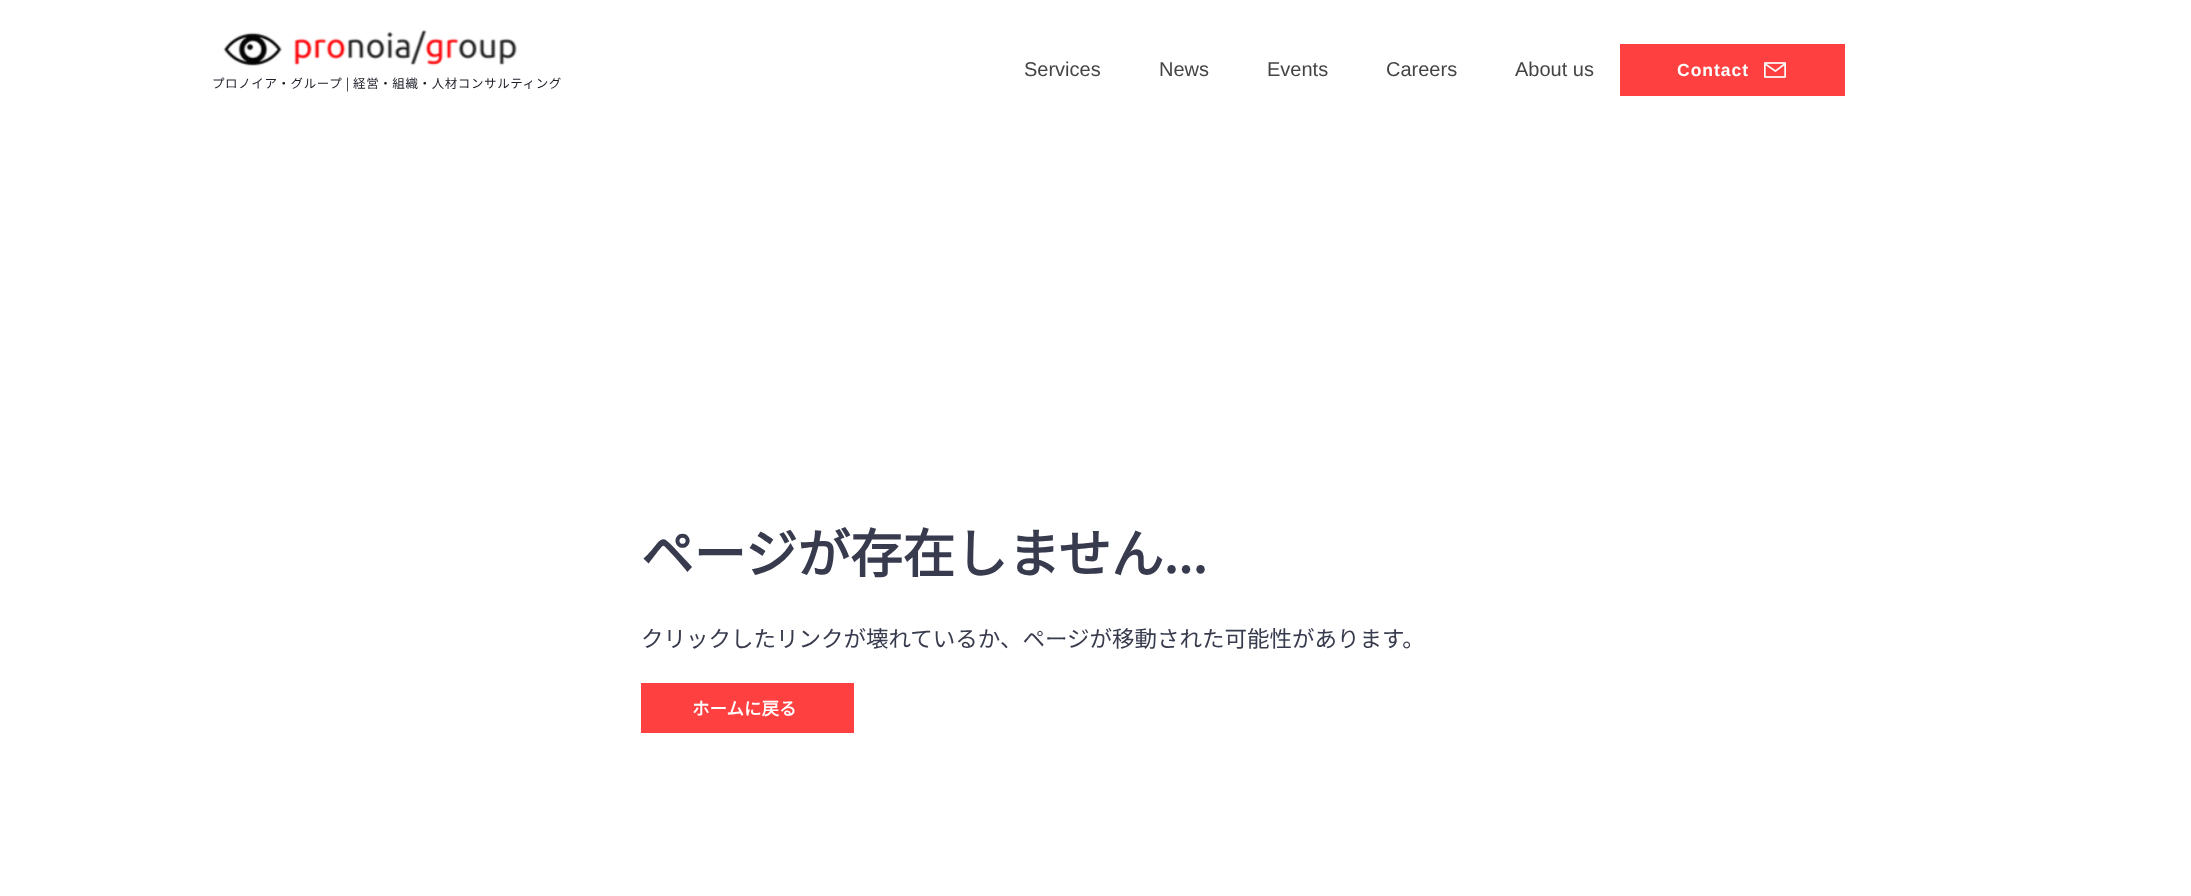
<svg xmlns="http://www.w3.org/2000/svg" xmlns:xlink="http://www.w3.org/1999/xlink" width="2191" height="896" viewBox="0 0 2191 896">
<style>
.cls-1{font:20px Liberation Sans;fill:#444444}
.cls-2{font:bold 17.5px Liberation Sans;letter-spacing:1px;fill:#ffffff}
.cls-3{font:12.5px Noto Sans JP;letter-spacing:0.6px;fill:#1c1d27}
.cls-4{font:bold 52.5px Noto Sans JP;fill:#373b4d}
.cls-5{font:22.5px Noto Sans JP;fill:#373b4d}
.cls-6{font:bold 17.5px Noto Sans JP;fill:#ffffff}
</style>
<rect width="100%" height="100%" fill="#ffffff"/>
<rect fill="#ff4040" x="1620" y="44" width="225" height="52"/>
<image xlink:href="image0.png" x="1764" y="62" width="22" height="16"/>
<image xlink:href="image1.png" x="223" y="29" width="294" height="37"/>
<rect fill="#ff4040" x="641" y="683" width="213" height="50"/>
<text class="cls-1" x="1024" y="76">Services</text>
<text class="cls-1" x="1159" y="76">News</text>
<text class="cls-1" x="1267" y="76">Events</text>
<text class="cls-1" x="1386" y="76">Careers</text>
<text class="cls-1" x="1515" y="76">About us</text>
<text class="cls-2" x="1677" y="76">Contact</text>
<text class="cls-3" x="212" y="88">プロノイア・グループ | 経営・組織・人材コンサルティング</text>
<text class="cls-4" x="641" y="573">ページが存在しません...</text>
<text class="cls-5" x="641" y="647">クリックしたリンクが壊れているか、ページが移動された可能性があります。</text>
<text class="cls-6" x="692" y="715">ホームに戻る</text>
</svg>
